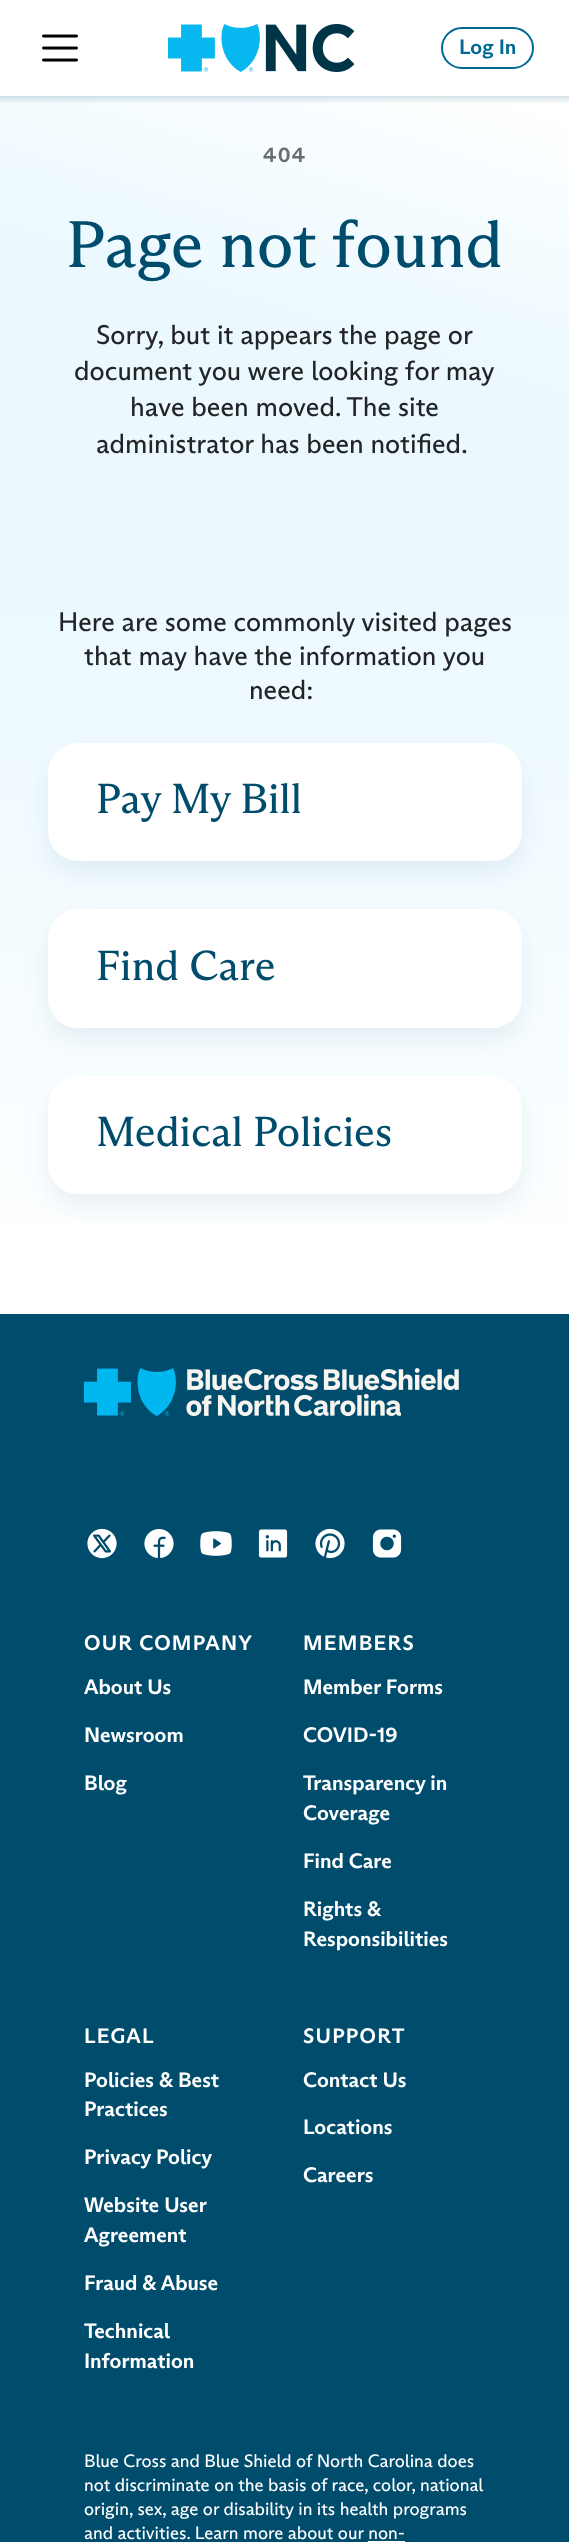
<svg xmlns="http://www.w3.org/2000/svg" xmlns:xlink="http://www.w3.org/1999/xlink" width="569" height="2542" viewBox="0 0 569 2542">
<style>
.cls-1{font:bold 21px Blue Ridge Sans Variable;fill:#006894}
.cls-2{font:bold 21px Blue Ridge Sans Variable;letter-spacing:1.25px;fill:#676d70}
.cls-3{font:66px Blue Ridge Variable;fill:#004c6c}
.cls-4{font:27.1px Blue Ridge Sans Variable;fill:#222425}
.cls-5{font:27px Blue Ridge Sans Variable;fill:#222425}
.cls-6{font:42px Blue Ridge Variable;fill:#004c6c}
.cls-7{font:bold 21px Blue Ridge Sans Variable;letter-spacing:1.25px;fill:#ffffff}
.cls-8{font:bold 21px Blue Ridge Sans Variable;fill:#ffffff}
.cls-9{font:18px Blue Ridge Sans Variable;fill:#ffffff}
</style>
<defs>
<linearGradient id="g1" gradientUnits="userSpaceOnUse" x1="383" y1="-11" x2="187" y2="638"><stop offset="0.08" stop-color="#ffffff"/><stop offset="0.51" stop-color="#ebf9ff"/></linearGradient>
<linearGradient id="g2" gradientUnits="userSpaceOnUse" x1="285" y1="96" x2="285" y2="104"><stop offset="0" stop-color="#004c6c" stop-opacity="0.16"/><stop offset="1" stop-color="#004c6c" stop-opacity="0"/></linearGradient>
<linearGradient id="g3" gradientUnits="userSpaceOnUse" x1="285" y1="582" x2="285" y2="1314"><stop offset="0" stop-color="#ebf9ff"/><stop offset="1" stop-color="#ffffff"/></linearGradient>
</defs>
<rect width="100%" height="100%" fill="#ffffff"/>
<image xlink:href="image0.png" x="42" y="34" width="36" height="28"/>
<image xlink:href="image1.png" x="168" y="24" width="187" height="48"/>
<rect fill="none" stroke="#006894" stroke-width="2" x="442" y="28" width="91" height="40" rx="20"/>
<rect fill="url(#g1)" x="0" y="96" width="569" height="486"/>
<rect fill="url(#g2)" x="0" y="96" width="569" height="7"/>
<rect fill="url(#g3)" x="0" y="582" width="569" height="640"/>
<rect fill="#004c6c" fill-opacity="0.08" filter="blur(12px)" x="48" y="755" width="474" height="118" rx="30"/>
<rect fill="#ffffff" x="48" y="743" width="474" height="118" rx="30"/>
<rect fill="#004c6c" fill-opacity="0.08" filter="blur(12px)" x="48" y="921" width="474" height="119" rx="30"/>
<rect fill="#ffffff" x="48" y="909" width="474" height="119" rx="30"/>
<rect fill="#004c6c" fill-opacity="0.08" filter="blur(12px)" x="48" y="1088" width="474" height="118" rx="30"/>
<rect fill="#ffffff" x="48" y="1076" width="474" height="118" rx="30"/>
<rect fill="#004c6c" x="0" y="1314" width="569" height="1228"/>
<image xlink:href="image2.png" x="84" y="1368" width="375" height="49"/>
<image xlink:href="image3.png" x="87" y="1528" width="30" height="31"/>
<image xlink:href="image4.png" x="144" y="1529" width="30" height="29"/>
<image xlink:href="image5.png" x="200" y="1531" width="32" height="25"/>
<image xlink:href="image6.png" x="258" y="1529" width="30" height="29"/>
<image xlink:href="image7.png" x="315" y="1528" width="30" height="31"/>
<image xlink:href="image8.png" x="372" y="1529" width="30" height="29"/>
<rect fill="#ffffff" x="368" y="2541" width="37" height="1"/>
<text class="cls-1" x="459" y="54">Log In</text>
<text class="cls-2" x="263" y="162">404</text>
<text class="cls-3" x="66" y="267">Page not found</text>
<text class="cls-4" x="96" y="344">Sorry, but it appears the page or</text>
<text class="cls-4" x="74" y="380">document you were looking for may</text>
<text class="cls-4" x="130" y="416">have been moved. The site</text>
<text class="cls-4" x="96" y="453">administrator has been notified.</text>
<text class="cls-5" x="58" y="631">Here are some commonly visited pages</text>
<text class="cls-5" x="84" y="665">that may have the information you</text>
<text class="cls-5" x="249" y="699">need:</text>
<text class="cls-6" x="96" y="813">Pay My Bill</text>
<text class="cls-6" x="96" y="980">Find Care</text>
<text class="cls-6" x="96" y="1146">Medical Policies</text>
<text class="cls-7" x="84" y="1650">OUR COMPANY</text>
<text class="cls-8" x="84" y="1694">About Us</text>
<text class="cls-8" x="84" y="1742">Newsroom</text>
<text class="cls-8" x="84" y="1790">Blog</text>
<text class="cls-7" x="303" y="1650">MEMBERS</text>
<text class="cls-8" x="303" y="1694">Member Forms</text>
<text class="cls-8" x="303" y="1742">COVID-19</text>
<text class="cls-8"><tspan x="303" y="1790">Transparency in</tspan><tspan x="303" y="1820">Coverage</tspan></text>
<text class="cls-8" x="303" y="1868">Find Care</text>
<text class="cls-8"><tspan x="303" y="1916">Rights &amp;</tspan><tspan x="303" y="1946">Responsibilities</tspan></text>
<text class="cls-7" x="84" y="2043">LEGAL</text>
<text class="cls-8"><tspan x="84" y="2087">Policies &amp; Best</tspan><tspan x="84" y="2116">Practices</tspan></text>
<text class="cls-8" x="84" y="2164">Privacy Policy</text>
<text class="cls-8"><tspan x="84" y="2212">Website User</tspan><tspan x="84" y="2242">Agreement</tspan></text>
<text class="cls-8" x="84" y="2290">Fraud &amp; Abuse</text>
<text class="cls-8"><tspan x="84" y="2338">Technical</tspan><tspan x="84" y="2368">Information</tspan></text>
<text class="cls-7" x="303" y="2043">SUPPORT</text>
<text class="cls-8" x="303" y="2087">Contact Us</text>
<text class="cls-8" x="303" y="2134">Locations</text>
<text class="cls-8" x="303" y="2182">Careers</text>
<text class="cls-9"><tspan x="84" y="2467">Blue Cross and Blue Shield of North Carolina does</tspan><tspan x="84" y="2491">not discriminate on the basis of race, color, national</tspan><tspan x="84" y="2515">origin, sex, age or disability in its health programs</tspan><tspan x="84" y="2539">and activities. Learn more about our non-</tspan></text>
</svg>
